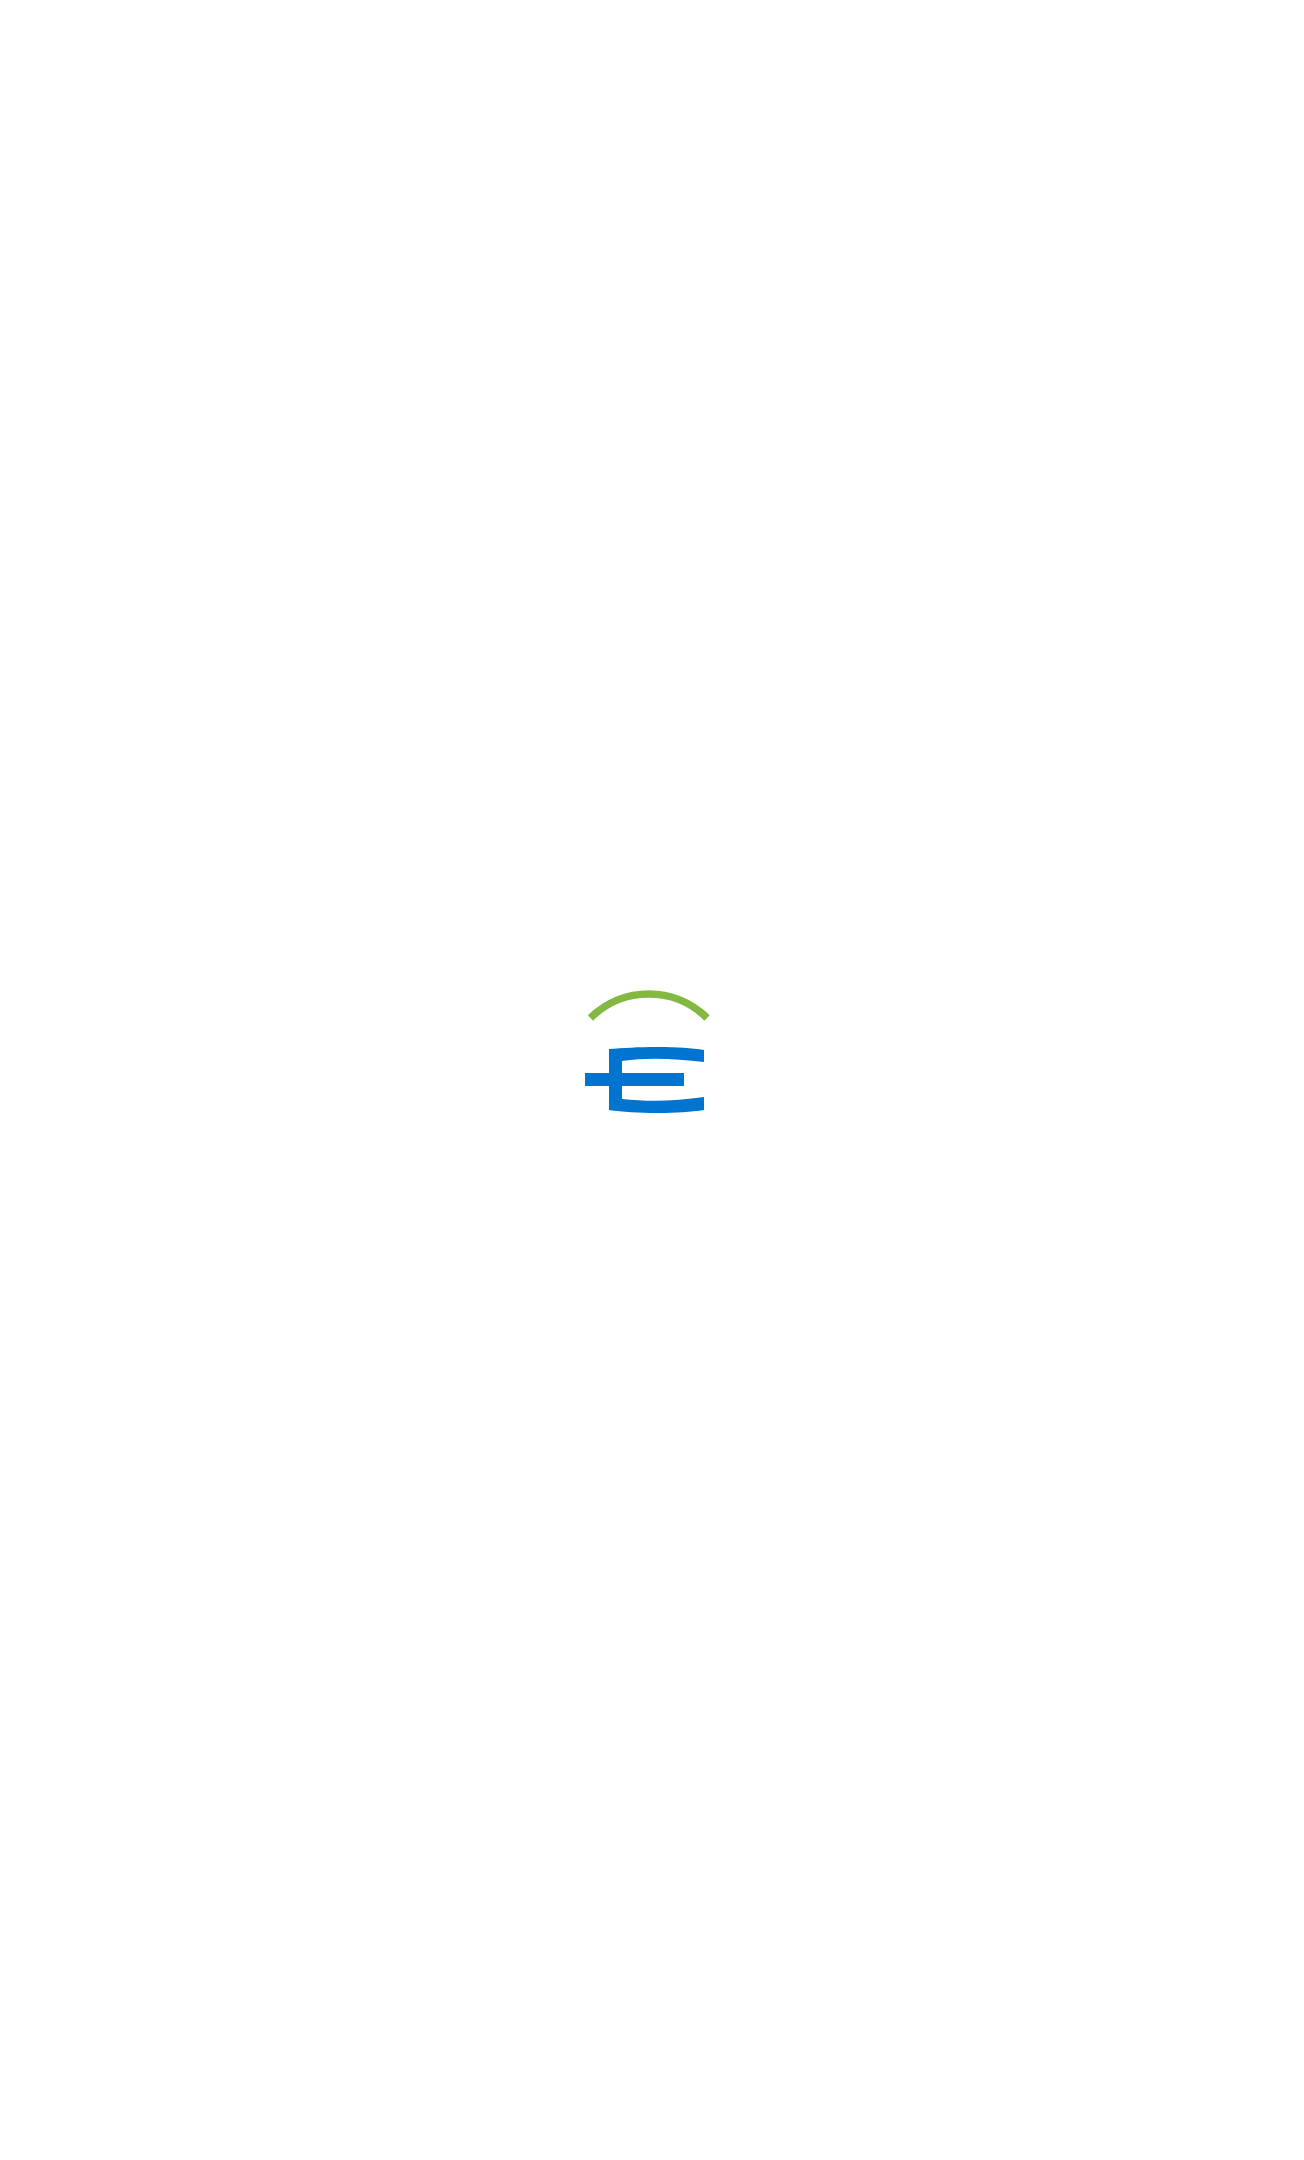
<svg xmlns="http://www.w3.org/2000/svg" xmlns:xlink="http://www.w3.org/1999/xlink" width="1304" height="2160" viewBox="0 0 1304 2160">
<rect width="100%" height="100%" fill="#ffffff"/>
<path fill="none" stroke="#83b942" stroke-width="7.5" d="M590.5 1018C622.5 986 675 986 707 1018"/>
<path fill="#0074cf" d="M585 1073H609V1049C622 1048 638 1047 658 1047C677 1047 692 1048 704 1050V1062C677 1059 649 1057 622 1061V1073H684V1086H622V1099C649 1102 677 1101 704 1097V1110C691 1112 676 1113 658 1113C639 1113 622 1112 609 1110V1086H585Z"/>
</svg>
